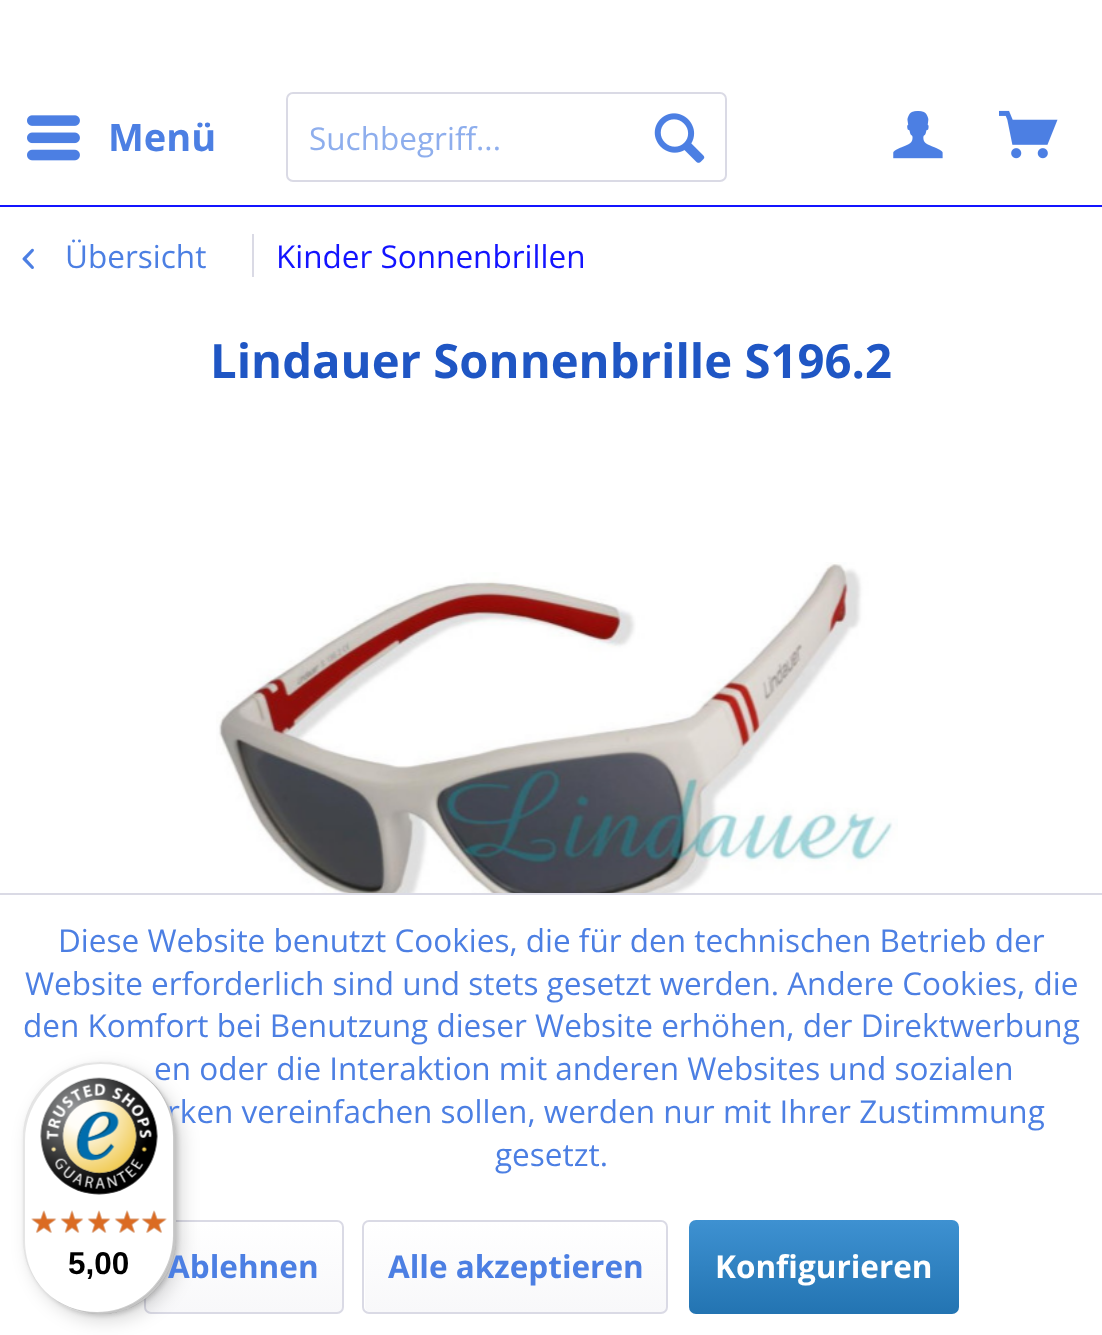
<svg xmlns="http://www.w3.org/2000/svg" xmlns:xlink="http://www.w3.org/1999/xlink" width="1102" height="1335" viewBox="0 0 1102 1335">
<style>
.cls-1{font:bold 38px Open Sans;fill:#4c7fe3}
.cls-2{font:31.5px Open Sans;fill:#8eaeed}
.cls-3{font:31.5px Open Sans;fill:#4c7fe3}
.cls-4{font:31.5px Open Sans;fill:#1314ff}
.cls-5{font:bold 47.25px Open Sans;fill:#1f56c4}
.cls-6{font:bold 31.5px Open Sans;fill:#4c7fe3}
.cls-7{font:bold 31.5px Open Sans;fill:#ffffff}
.cls-8{font:bold 31.5px Liberation Sans;fill:#000000}
</style>
<defs>
<linearGradient id="g1" gradientUnits="userSpaceOnUse" x1="244" y1="1222" x2="244" y2="1312"><stop offset="0" stop-color="#ffffff"/><stop offset="1" stop-color="#f8f8fa"/></linearGradient>
<linearGradient id="g2" gradientUnits="userSpaceOnUse" x1="515" y1="1222" x2="515" y2="1312"><stop offset="0" stop-color="#ffffff"/><stop offset="1" stop-color="#f8f8fa"/></linearGradient>
<linearGradient id="g3" gradientUnits="userSpaceOnUse" x1="824" y1="1220" x2="824" y2="1314"><stop offset="0" stop-color="#3e91d1"/><stop offset="1" stop-color="#2374b2"/></linearGradient>
</defs>
<rect width="100%" height="100%" fill="#ffffff"/>
<rect fill="#1314ff" x="0" y="205" width="1102" height="2"/>
<image xlink:href="image0.png" x="27" y="115" width="53" height="46"/>
<rect fill="none" stroke="#dadae5" stroke-width="2" x="287" y="93" width="439" height="88" rx="6"/>
<image xlink:href="image1.png" x="654" y="113" width="51" height="50"/>
<image xlink:href="image2.png" x="893" y="111" width="50" height="48"/>
<image xlink:href="image3.png" x="999" y="110" width="59" height="49"/>
<image xlink:href="image4.png" x="22" y="248" width="12" height="21"/>
<rect fill="#dadae5" x="252" y="234" width="2" height="43"/>
<image xlink:href="image5.png" x="216" y="562" width="682" height="331"/>
<rect fill="#dadae5" x="0" y="893" width="1102" height="2"/>
<rect fill="url(#g1)" x="146" y="1222" width="196" height="90" rx="5"/>
<rect fill="none" stroke="#dadae5" stroke-width="2" x="145" y="1221" width="198" height="92" rx="6"/>
<rect fill="url(#g2)" x="365" y="1222" width="301" height="90" rx="5"/>
<rect fill="none" stroke="#dadae5" stroke-width="2" x="363" y="1221" width="304" height="92" rx="6"/>
<rect fill="url(#g3)" x="689" y="1220" width="270" height="94" rx="7"/>
<rect fill="#000000" fill-opacity="0.15" filter="blur(9px)" x="29" y="1069" width="153" height="252" rx="76.5"/>
<rect fill="#000000" fill-opacity="0.15" filter="blur(2px)" x="25" y="1064" width="153" height="252" rx="76.5"/>
<text class="cls-1" x="108" y="151">Menü</text>
<text class="cls-2" x="309" y="150">Suchbegriff...</text>
<text class="cls-3" x="65" y="268">Übersicht</text>
<text class="cls-4" x="276" y="268">Kinder Sonnenbrillen</text>
<text class="cls-5" x="210" y="378">Lindauer Sonnenbrille S196.2</text>
<text class="cls-3" x="58" y="952">Diese Website benutzt Cookies, die für den technischen Betrieb der</text>
<text class="cls-3" x="25" y="995">Website erforderlich sind und stets gesetzt werden. Andere Cookies, die</text>
<text class="cls-3" x="23" y="1037">den Komfort bei Benutzung dieser Website erhöhen, der Direktwerbung</text>
<text class="cls-3" x="154" y="1080">en oder die Interaktion mit anderen Websites und sozialen</text>
<text class="cls-3" x="167" y="1123">rken vereinfachen sollen, werden nur mit Ihrer Zustimmung</text>
<text class="cls-3" x="495" y="1166">gesetzt.</text>
<text class="cls-6" x="168" y="1278">Ablehnen</text>
<text class="cls-6" x="388" y="1278">Alle akzeptieren</text>
<text class="cls-7" x="715" y="1278">Konfigurieren</text>
<rect fill="#ffffff" x="23" y="1062" width="153" height="252" rx="76.5"/>
<path fill="#000000" fill-opacity="0.1" d="M101 1064C126 1064 148 1076 163 1095C149 1075 126 1062 100 1062C57 1062 23 1096 23 1138V1238C23 1257 30 1275 42 1288C31 1275 25 1258 25 1240V1141C25 1099 59 1064 101 1064Z"/>
<path fill="#000000" fill-opacity="0.2" d="M48 1294C61 1306 80 1314 100 1314C142 1314 176 1280 176 1238V1138C176 1113 163 1090 144 1076C162 1090 173 1112 173 1136V1235C173 1277 139 1312 97 1312C78 1312 61 1305 48 1294Z"/>
<path fill="#323232" fill-opacity="0.2" d="M59 1302C71 1310 85 1314 100 1314C142 1314 176 1280 176 1238V1138C176 1111 161 1086 139 1073C160 1086 174 1110 174 1137V1236C174 1278 140 1313 98 1313C84 1313 70 1309 59 1302Z"/>
<path fill="#ffffff" fill-opacity="0.3" d="M58 1302C70 1310 84 1314 100 1314C142 1314 176 1280 176 1238V1138C176 1111 161 1086 139 1073C160 1086 174 1110 174 1137V1236C174 1279 140 1313 98 1313C83 1313 70 1309 58 1302Z"/>
<image xlink:href="image6.png" x="40" y="1077" width="118" height="118"/>
<image xlink:href="image7.png" x="31" y="1211" width="25" height="22"/>
<image xlink:href="image8.png" x="61" y="1210" width="22" height="23"/>
<image xlink:href="image9.png" x="88" y="1211" width="22" height="22"/>
<image xlink:href="image10.png" x="115" y="1210" width="24" height="23"/>
<image xlink:href="image11.png" x="142" y="1211" width="25" height="22"/>
<image xlink:href="image12.png" x="31" y="1210" width="26" height="23"/>
<image xlink:href="image13.png" x="60" y="1210" width="24" height="23"/>
<image xlink:href="image14.png" x="87" y="1210" width="24" height="23"/>
<image xlink:href="image15.png" x="114" y="1210" width="26" height="23"/>
<image xlink:href="image16.png" x="141" y="1210" width="26" height="23"/>
<text class="cls-8" x="68" y="1274">5,00</text>
</svg>
